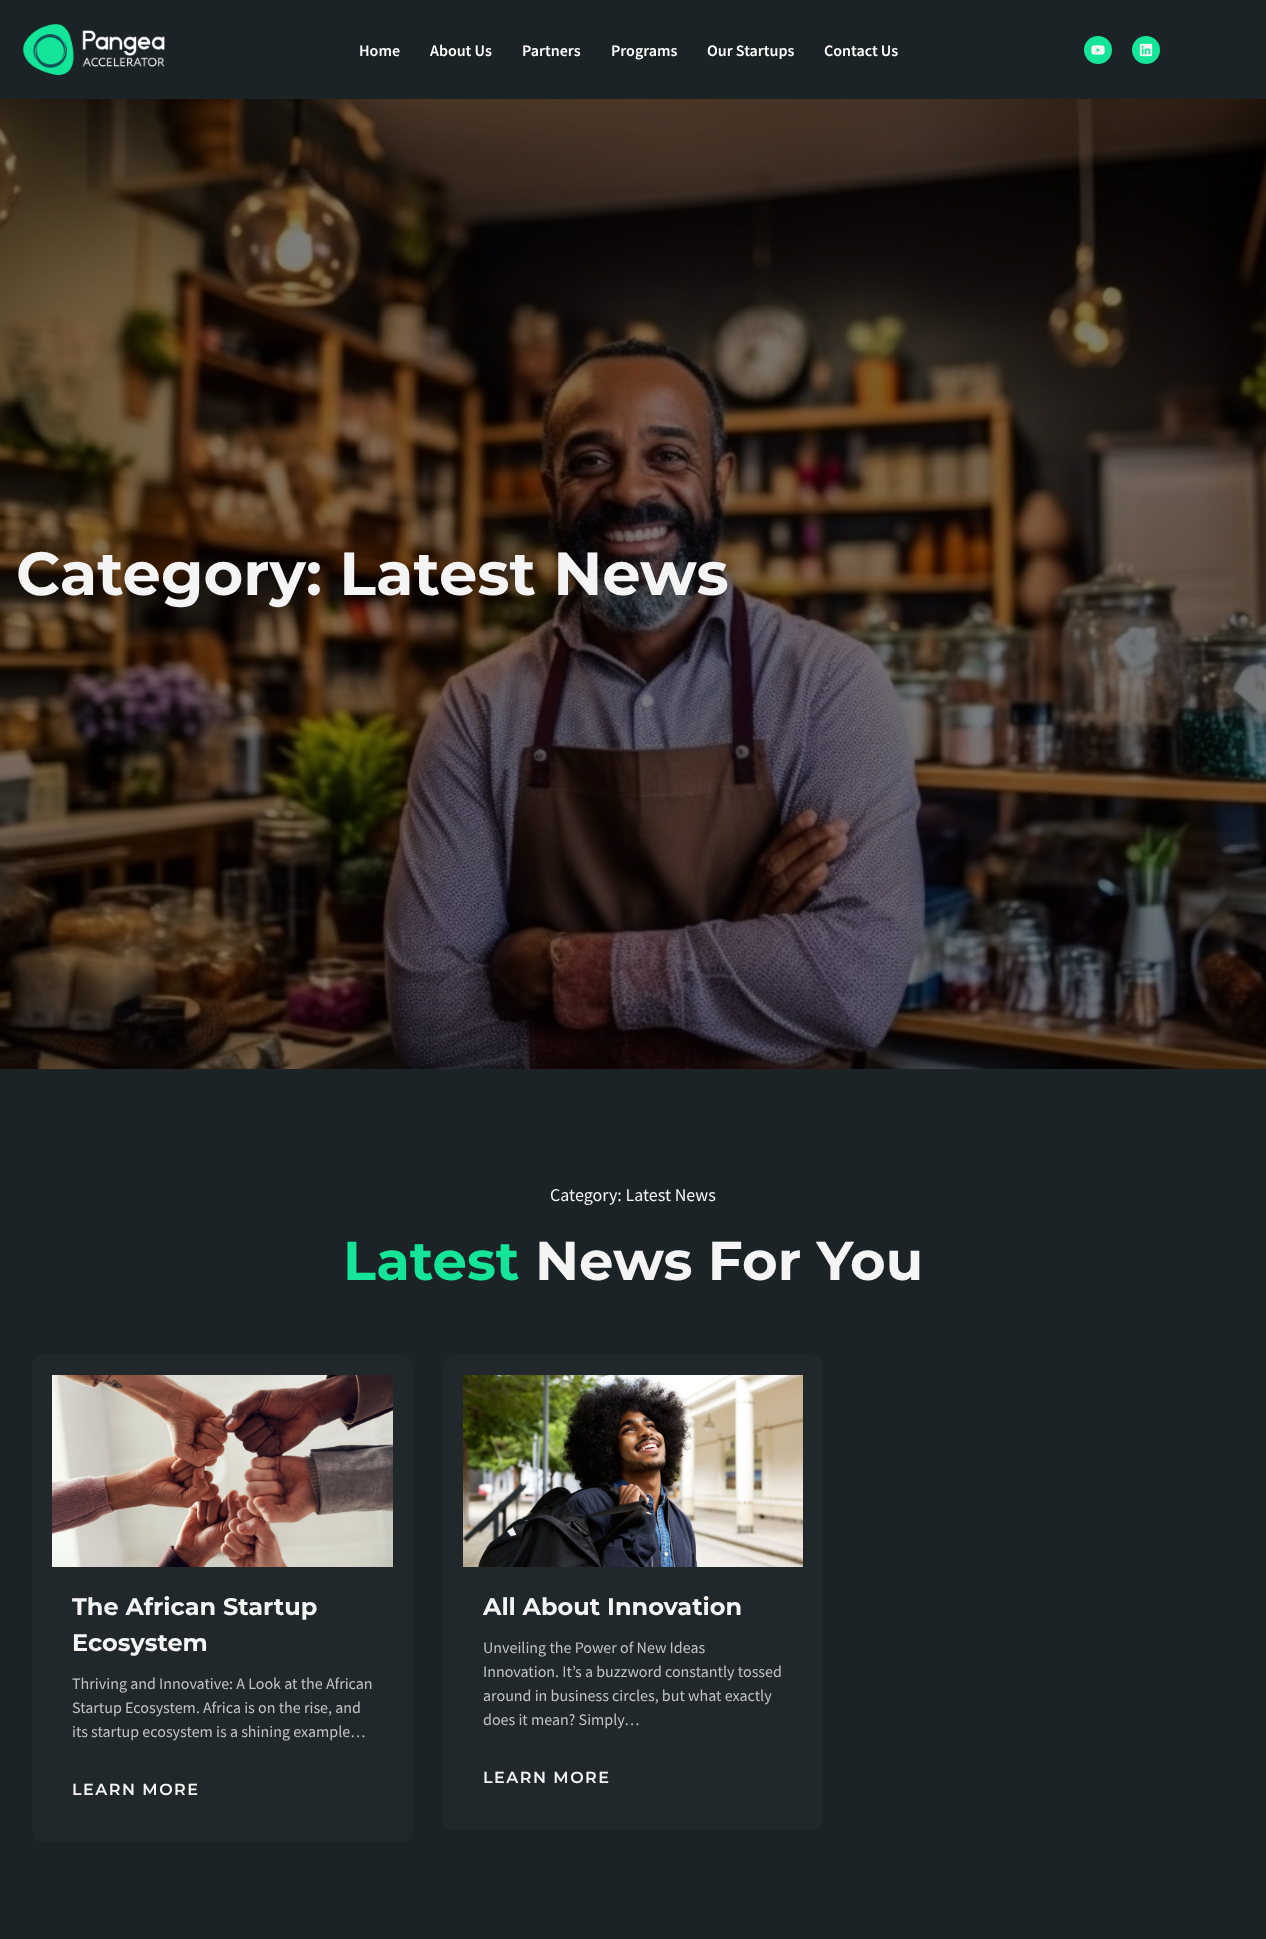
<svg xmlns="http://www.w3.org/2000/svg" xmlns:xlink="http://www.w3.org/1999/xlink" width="1266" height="1939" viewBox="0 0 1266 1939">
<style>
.cls-1{font:600 16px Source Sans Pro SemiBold;fill:#ffffff}
.cls-2{font:bold 60.75px Montserrat;fill:#f4f4f4}
.cls-3{font:18px Source Sans Pro;fill:#f4f4f4}
.cls-4{font:bold 54.5px Montserrat;fill:#15e599}
.cls-5{font:bold 54.5px Montserrat;fill:#f4f4f4}
.cls-6{font:bold 24px Montserrat;fill:#f4f4f4}
.cls-7{font:16px Source Sans Pro;fill:#c2c2c2}
.cls-8{font:600 16px Montserrat;letter-spacing:1.5px;fill:#f4f4f4}
</style>
<rect width="100%" height="100%" fill="#1c2326"/>
<image xlink:href="image0.png" x="22" y="24" width="143" height="52"/>
<circle fill="#15e599" cx="1098" cy="50" r="14"/>
<image xlink:href="image1.png" x="1091" y="45" width="14" height="10"/>
<circle fill="#15e599" cx="1146" cy="50" r="14"/>
<image xlink:href="image2.png" x="1139" y="43" width="14" height="14"/>
<image xlink:href="image3.png" x="0" y="99" width="1266" height="970"/>
<rect fill="#21282b" x="32" y="1355" width="381" height="487" rx="10"/>
<image xlink:href="image4.png" x="52" y="1375" width="341" height="192"/>
<rect fill="#21282b" x="443" y="1355" width="380" height="475" rx="10"/>
<image xlink:href="image5.png" x="463" y="1375" width="340" height="192"/>
<text class="cls-1" x="359" y="56">Home</text>
<text class="cls-1" x="430" y="56">About Us</text>
<text class="cls-1" x="522" y="56">Partners</text>
<text class="cls-1" x="611" y="56">Programs</text>
<text class="cls-1" x="707" y="56">Our Startups</text>
<text class="cls-1" x="824" y="56">Contact Us</text>
<text class="cls-2" x="16" y="595">Category: Latest News</text>
<text class="cls-3" x="550" y="1201">Category: Latest News</text>
<text class="cls-4" x="343" y="1280">Latest</text>
<text class="cls-5" x="535" y="1280">News For You</text>
<text class="cls-6"><tspan x="72" y="1615">The African Startup</tspan><tspan x="72" y="1651">Ecosystem</tspan></text>
<text class="cls-7"><tspan x="72" y="1689">Thriving and Innovative: A Look at the African</tspan><tspan x="72" y="1713">Startup Ecosystem. Africa is on the rise, and</tspan><tspan x="72" y="1737">its startup ecosystem is a shining example…</tspan></text>
<text class="cls-8" x="72" y="1795">LEARN MORE</text>
<text class="cls-6" x="483" y="1615">All About Innovation</text>
<text class="cls-7"><tspan x="483" y="1653">Unveiling the Power of New Ideas</tspan><tspan x="483" y="1677">Innovation. It’s a buzzword constantly tossed</tspan><tspan x="483" y="1701">around in business circles, but what exactly</tspan><tspan x="483" y="1725">does it mean? Simply…</tspan></text>
<text class="cls-8" x="483" y="1783">LEARN MORE</text>
</svg>
